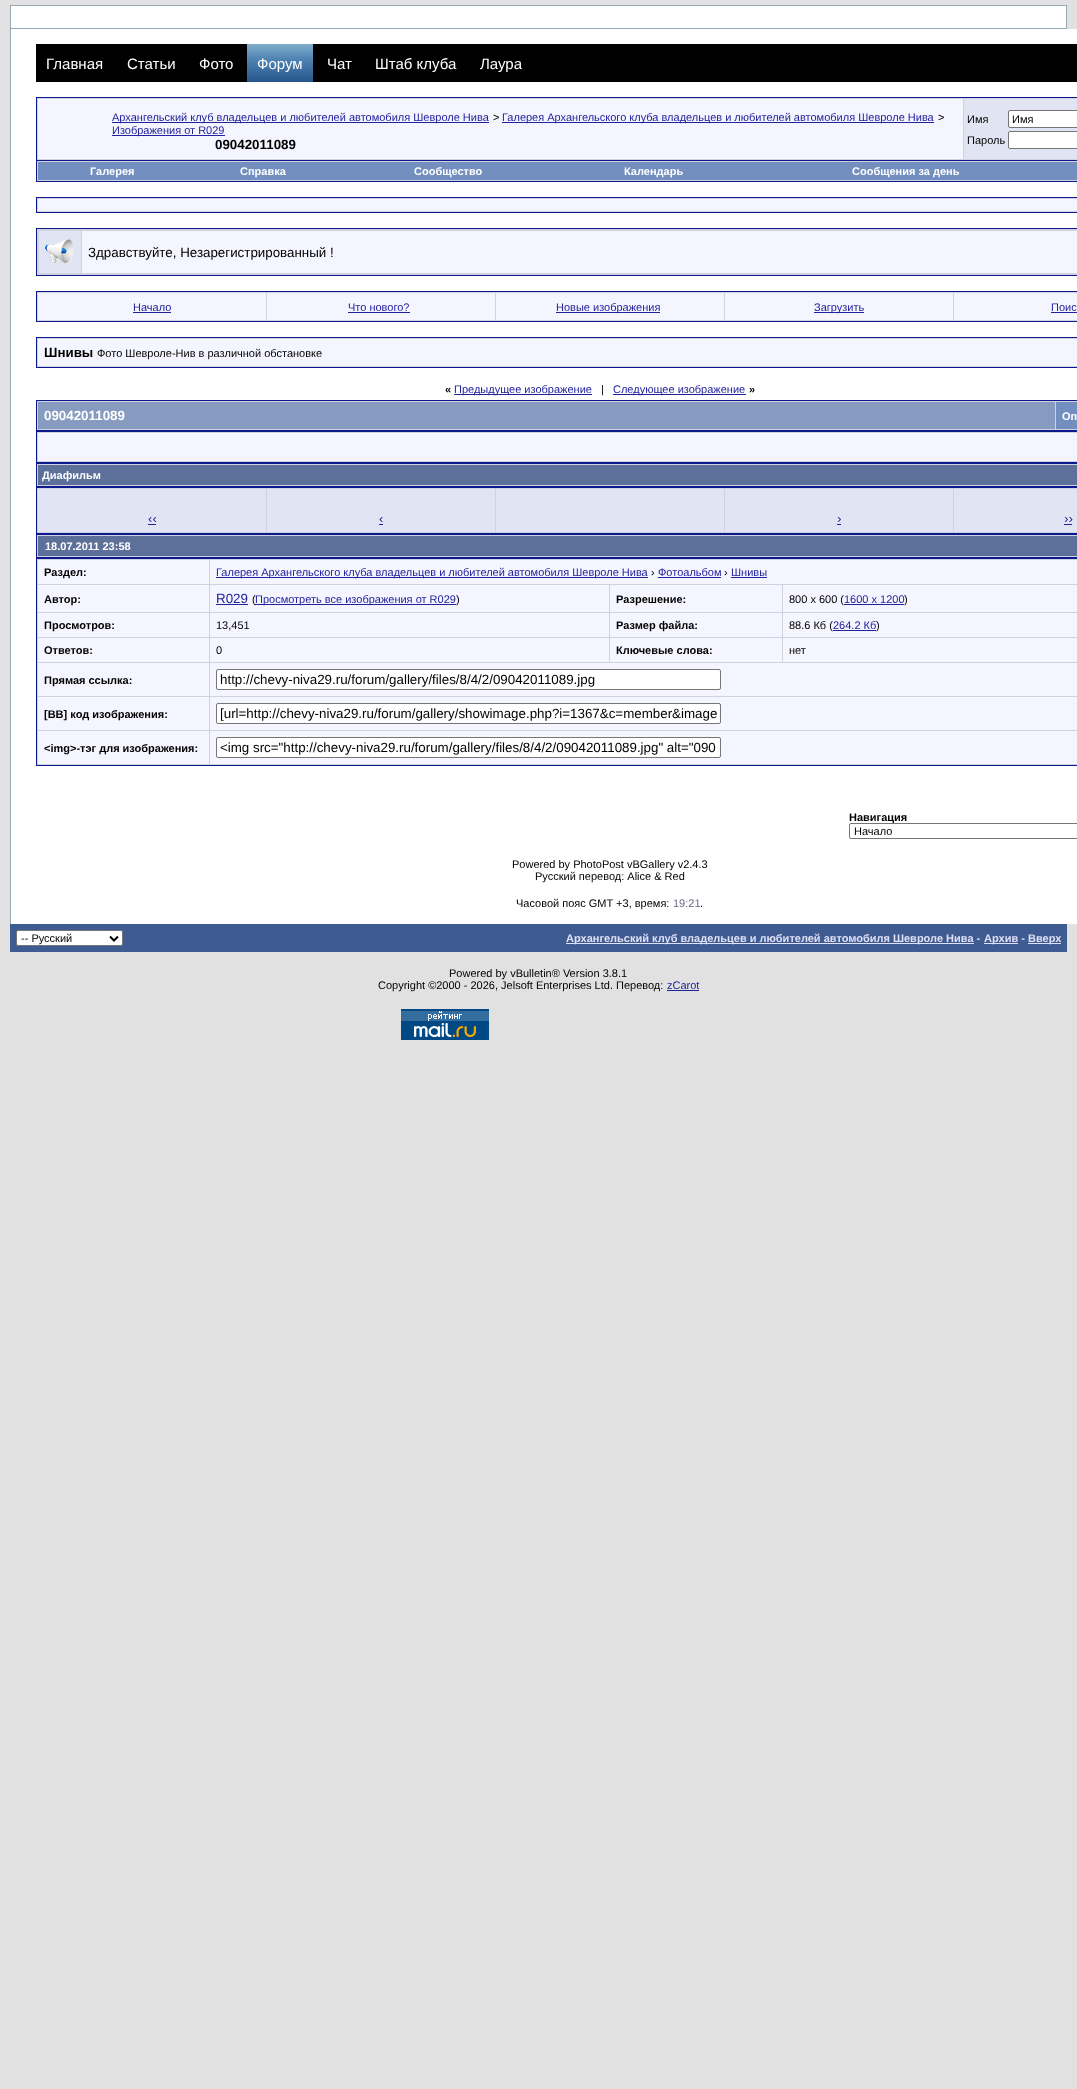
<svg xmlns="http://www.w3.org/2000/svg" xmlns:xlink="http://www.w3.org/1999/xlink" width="1077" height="2089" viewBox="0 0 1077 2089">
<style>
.cls-1{font:15px Liberation Sans;fill:#ffffff}
.cls-2{font:11px Liberation Sans;fill:#22229c}
.cls-3{font:11px Liberation Sans;fill:#000000}
.cls-4{font:bold 13.35px Liberation Sans;fill:#000000}
.cls-5{font:bold 11px Liberation Sans;fill:#ffffff}
.cls-6{font:13.35px Liberation Sans;fill:#000000}
.cls-7{font:bold 11px Liberation Sans;fill:#000000}
.cls-8{font:bold 13.35px Liberation Sans;fill:#ffffff}
.cls-9{font:13.35px Liberation Sans;fill:#22229c}
.cls-10{font:11px Liberation Sans;fill:#666686}
.cls-11{font:bold 11px Liberation Sans;fill:#e0e0f6}
</style>
<rect width="100%" height="100%" fill="#e1e1e2"/>
<rect fill="#ffffff" stroke="#98aab1" x="10.5" y="5.5" width="1056" height="23"/>
<rect fill="#ffffff" x="11" y="29" width="1066" height="895"/>
<rect fill="#98aab1" x="10" y="29" width="1" height="895"/>
<rect fill="#000000" x="36" y="44" width="1041" height="38"/>
<image xlink:href="image0.png" x="247" y="44" width="66" height="38"/>
<rect fill="#d1d1e1" stroke="#0b198c" x="36.5" y="97.5" width="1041" height="63"/>
<rect fill="#f5f5ff" x="38" y="99" width="925" height="60"/>
<rect fill="#22229c" x="112" y="122" width="377" height="1"/>
<rect fill="#22229c" x="502" y="122" width="432" height="1"/>
<rect fill="#22229c" x="112" y="135" width="113" height="1"/>
<rect fill="#e1e4f2" x="964" y="99" width="113" height="60"/>
<rect fill="#ffffff" stroke="#767676" x="1008.5" y="110.5" width="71" height="17" rx="1.5"/>
<rect fill="#ffffff" stroke="#767676" x="1008.5" y="131.5" width="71" height="17" rx="1.5"/>
<rect fill="#d1d1e1" x="37" y="161" width="1040" height="20"/>
<rect fill="#0b198c" x="36" y="181" width="1041" height="1"/>
<rect fill="#0b198c" x="36" y="161" width="1" height="21"/>
<rect fill="#738fbf" x="38" y="162" width="1039" height="18"/>
<rect fill="#d1d1e1" stroke="#0b198c" x="36.5" y="197.5" width="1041" height="15"/>
<rect fill="#f5f5ff" x="38" y="199" width="1039" height="12"/>
<rect fill="#d1d1e1" stroke="#0b198c" x="36.5" y="228.5" width="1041" height="47"/>
<rect fill="#e1e4f2" x="39" y="231" width="42" height="42"/>
<image xlink:href="image1.png" x="45" y="238" width="29" height="26"/>
<rect fill="#f5f5ff" x="82" y="231" width="995" height="42"/>
<rect fill="#d1d1e1" stroke="#0b198c" x="36.5" y="291.5" width="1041" height="30"/>
<rect fill="#f5f5ff" x="38" y="293" width="228" height="27"/>
<rect fill="#22229c" x="133" y="312" width="38" height="1"/>
<rect fill="#f5f5ff" x="267" y="293" width="228" height="27"/>
<rect fill="#22229c" x="348" y="312" width="62" height="1"/>
<rect fill="#f5f5ff" x="496" y="293" width="228" height="27"/>
<rect fill="#22229c" x="556" y="312" width="104" height="1"/>
<rect fill="#f5f5ff" x="725" y="293" width="228" height="27"/>
<rect fill="#22229c" x="814" y="312" width="50" height="1"/>
<rect fill="#f5f5ff" x="954" y="293" width="123" height="27"/>
<rect fill="#22229c" x="1051" y="312" width="26" height="1"/>
<rect fill="#d1d1e1" stroke="#0b198c" x="36.5" y="337.5" width="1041" height="30"/>
<rect fill="#f5f5ff" x="38" y="339" width="1039" height="27"/>
<rect fill="#22229c" x="454" y="394" width="138" height="1"/>
<rect fill="#22229c" x="613" y="394" width="133" height="1"/>
<rect fill="#d1d1e1" stroke="#0b198c" x="36.5" y="400.5" width="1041" height="30"/>
<rect fill="#869bbf" x="38" y="402" width="1017" height="27"/>
<rect fill="#738fbf" x="1056" y="402" width="21" height="27"/>
<rect fill="#d1d1e1" stroke="#0b198c" x="36.5" y="431.5" width="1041" height="31"/>
<rect fill="#f5f5ff" x="38" y="433" width="1039" height="28"/>
<rect fill="#d1d1e1" stroke="#0b198c" x="36.5" y="463.5" width="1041" height="23"/>
<rect fill="#5c7099" x="38" y="465" width="1039" height="20"/>
<rect fill="#d1d1e1" stroke="#0b198c" x="36.5" y="487.5" width="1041" height="46"/>
<rect fill="#e1e4f2" x="38" y="489" width="228" height="43"/>
<rect fill="#22229c" x="148" y="524" width="8" height="1"/>
<rect fill="#e1e4f2" x="267" y="489" width="228" height="43"/>
<rect fill="#22229c" x="379" y="524" width="4" height="1"/>
<rect fill="#e1e4f2" x="496" y="489" width="228" height="43"/>
<rect fill="#e1e4f2" x="725" y="489" width="228" height="43"/>
<rect fill="#22229c" x="837" y="524" width="4" height="1"/>
<rect fill="#e1e4f2" x="954" y="489" width="123" height="43"/>
<rect fill="#22229c" x="1064" y="524" width="8" height="1"/>
<rect fill="#d1d1e1" stroke="#0b198c" x="36.5" y="534.5" width="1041" height="23"/>
<rect fill="#5c7099" x="38" y="536" width="1039" height="20"/>
<rect fill="#d1d1e1" stroke="#0b198c" x="36.5" y="558.5" width="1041" height="207"/>
<rect fill="#f5f5ff" x="38" y="560" width="171" height="24"/>
<rect fill="#f5f5ff" x="210" y="560" width="867" height="24"/>
<rect fill="#22229c" x="216" y="577" width="432" height="1"/>
<rect fill="#22229c" x="658" y="577" width="63" height="1"/>
<rect fill="#22229c" x="731" y="577" width="36" height="1"/>
<rect fill="#f5f5ff" x="38" y="585" width="171" height="27"/>
<rect fill="#f5f5ff" x="210" y="585" width="399" height="27"/>
<rect fill="#22229c" x="216" y="604" width="32" height="1"/>
<rect fill="#f5f5ff" x="610" y="585" width="172" height="27"/>
<rect fill="#f5f5ff" x="783" y="585" width="294" height="27"/>
<rect fill="#22229c" x="844" y="604" width="60" height="1"/>
<rect fill="#f5f5ff" x="38" y="613" width="171" height="24"/>
<rect fill="#f5f5ff" x="210" y="613" width="399" height="24"/>
<rect fill="#f5f5ff" x="610" y="613" width="172" height="24"/>
<rect fill="#f5f5ff" x="783" y="613" width="294" height="24"/>
<rect fill="#22229c" x="833" y="630" width="43" height="1"/>
<rect fill="#f5f5ff" x="38" y="638" width="171" height="24"/>
<rect fill="#f5f5ff" x="210" y="638" width="399" height="24"/>
<rect fill="#f5f5ff" x="610" y="638" width="172" height="24"/>
<rect fill="#f5f5ff" x="783" y="638" width="294" height="24"/>
<rect fill="#f5f5ff" x="38" y="663" width="171" height="33"/>
<rect fill="#f5f5ff" x="210" y="663" width="867" height="33"/>
<rect fill="#ffffff" stroke="#767676" x="216.5" y="669.5" width="504" height="20" rx="1.5"/>
<rect fill="#f5f5ff" x="38" y="697" width="171" height="33"/>
<rect fill="#f5f5ff" x="210" y="697" width="867" height="33"/>
<rect fill="#ffffff" stroke="#767676" x="216.5" y="703.5" width="504" height="20" rx="1.5"/>
<rect fill="#f5f5ff" x="38" y="731" width="171" height="33"/>
<rect fill="#f5f5ff" x="210" y="731" width="867" height="33"/>
<rect fill="#ffffff" stroke="#767676" x="216.5" y="737.5" width="504" height="20" rx="1.5"/>
<rect fill="#3e5c92" x="10" y="924" width="1057" height="28"/>
<rect fill="#ffffff" stroke="#767676" x="16.5" y="930.5" width="106" height="15" rx="1.5"/>
<path fill="none" stroke="#000000" stroke-width="2" d="M110 936.5L114 940.5L118 936.5"/>
<rect fill="#e0e0f6" x="566" y="943" width="408" height="1"/>
<rect fill="#e0e0f6" x="984" y="943" width="34" height="1"/>
<rect fill="#e0e0f6" x="1028" y="943" width="33" height="1"/>
<rect fill="#22229c" x="667" y="990" width="32" height="1"/>
<image xlink:href="image2.png" x="401" y="1009" width="88" height="31"/>
<text class="cls-1" x="46" y="69">Главная</text>
<text class="cls-1" x="127" y="69">Статьи</text>
<text class="cls-1" x="199" y="69">Фото</text>
<text class="cls-1" x="257" y="69">Форум</text>
<text class="cls-1" x="327" y="69">Чат</text>
<text class="cls-1" x="375" y="69">Штаб клуба</text>
<text class="cls-1" x="480" y="69">Лаура</text>
<text class="cls-2" x="112" y="121">Архангельский клуб владельцев и любителей автомобиля Шевроле Нива</text>
<text class="cls-3" x="493" y="121">&gt;</text>
<text class="cls-2" x="502" y="121">Галерея Архангельского клуба владельцев и любителей автомобиля Шевроле Нива</text>
<text class="cls-3" x="938" y="121">&gt;</text>
<text class="cls-2" x="112" y="134">Изображения от R029</text>
<text class="cls-4" x="215" y="149">09042011089</text>
<text class="cls-3" x="967" y="123">Имя</text>
<text class="cls-3" x="1012" y="123">Имя</text>
<text class="cls-3" x="967" y="144">Пароль</text>
<text class="cls-5" x="90" y="175">Галерея</text>
<text class="cls-5" x="240" y="175">Справка</text>
<text class="cls-5" x="414" y="175">Сообщество</text>
<text class="cls-5" x="624" y="175">Календарь</text>
<text class="cls-5" x="852" y="175">Сообщения за день</text>
<text class="cls-6" x="88" y="257">Здравствуйте, Незарегистрированный !</text>
<text class="cls-2" x="133" y="311">Начало</text>
<text class="cls-2" x="348" y="311">Что нового?</text>
<text class="cls-2" x="556" y="311">Новые изображения</text>
<text class="cls-2" x="814" y="311">Загрузить</text>
<text class="cls-2" x="1051" y="311">Поис</text>
<text class="cls-4" x="44" y="357">Шнивы</text>
<text class="cls-3" x="97" y="357">Фото Шевроле-Нив в различной обстановке</text>
<text class="cls-7" x="445" y="393">«</text>
<text class="cls-2" x="454" y="393">Предыдущее изображение</text>
<text class="cls-3" x="601" y="393">|</text>
<text class="cls-2" x="613" y="393">Следующее изображение</text>
<text class="cls-7" x="749" y="393">»</text>
<text class="cls-8" x="44" y="420">09042011089</text>
<text class="cls-5" x="1062" y="420">Оп</text>
<text class="cls-5" x="42" y="479">Диафильм</text>
<text class="cls-9" x="148" y="523">‹‹</text>
<text class="cls-9" x="379" y="523">‹</text>
<text class="cls-9" x="837" y="523">›</text>
<text class="cls-9" x="1064" y="523">››</text>
<text class="cls-5" x="45" y="550">18.07.2011 23:58</text>
<text class="cls-7" x="44" y="576">Раздел:</text>
<text class="cls-2" x="216" y="576">Галерея Архангельского клуба владельцев и любителей автомобиля Шевроле Нива</text>
<text class="cls-3" x="651" y="576">›</text>
<text class="cls-2" x="658" y="576">Фотоальбом</text>
<text class="cls-3" x="724" y="576">›</text>
<text class="cls-2" x="731" y="576">Шнивы</text>
<text class="cls-7" x="44" y="603">Автор:</text>
<text class="cls-9" x="216" y="603">R029</text>
<text class="cls-3" x="252" y="603">(</text>
<rect fill="#22229c" x="255" y="604" width="201" height="1"/>
<text class="cls-2" x="255" y="603">Просмотреть все изображения от R029</text>
<text class="cls-3" x="456" y="603">)</text>
<text class="cls-7" x="616" y="603">Разрешение:</text>
<text class="cls-3" x="789" y="603">800 x 600 (</text>
<text class="cls-2" x="844" y="603">1600 x 1200</text>
<text class="cls-3" x="904" y="603">)</text>
<text class="cls-7" x="44" y="629">Просмотров:</text>
<text class="cls-3" x="216" y="629">13,451</text>
<text class="cls-7" x="616" y="629">Размер файла:</text>
<text class="cls-3" x="789" y="629">88.6 Кб (</text>
<text class="cls-2" x="833" y="629">264.2 Кб</text>
<text class="cls-3" x="876" y="629">)</text>
<text class="cls-7" x="44" y="654">Ответов:</text>
<text class="cls-3" x="216" y="654">0</text>
<text class="cls-7" x="616" y="654">Ключевые слова:</text>
<text class="cls-3" x="789" y="654">нет</text>
<text class="cls-7" x="44" y="684">Прямая ссылка:</text>
<text class="cls-6" x="220" y="684">http://chevy-niva29.ru/forum/gallery/files/8/4/2/09042011089.jpg</text>
<text class="cls-7" x="44" y="718">[BB] код изображения:</text>
<text class="cls-6" x="220" y="718">[url=http://chevy-niva29.ru/forum/gallery/showimage.php?i=1367&amp;c=member&amp;image</text>
<text class="cls-7" x="44" y="752">&lt;img&gt;-тэг для изображения:</text>
<text class="cls-6" x="220" y="752">&lt;img src="http://chevy-niva29.ru/forum/gallery/files/8/4/2/09042011089.jpg" alt="090</text>
<text class="cls-7" x="849" y="821">Навигация</text>
<rect fill="#ffffff" stroke="#767676" x="849.5" y="823.5" width="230" height="15" rx="1.5"/>
<text class="cls-3" x="854" y="835">Начало</text>
<text class="cls-3" x="512" y="868">Powered by PhotoPost vBGallery v2.4.3</text>
<text class="cls-3" x="535" y="880">Русский перевод: Alice &amp; Red</text>
<text class="cls-3" x="516" y="907">Часовой пояс GMT +3, время:</text>
<text class="cls-10" x="673" y="907">19:21</text>
<text class="cls-3" x="700" y="907">.</text>
<text class="cls-3" x="21" y="942">-- Русский</text>
<text class="cls-11" x="566" y="942">Архангельский клуб владельцев и любителей автомобиля Шевроле Нива -</text>
<text class="cls-11" x="984" y="942">Архив -</text>
<text class="cls-11" x="1028" y="942">Вверх</text>
<text class="cls-3" x="449" y="977">Powered by vBulletin® Version 3.8.1</text>
<text class="cls-3" x="378" y="989">Copyright ©2000 - 2026, Jelsoft Enterprises Ltd. Перевод:</text>
<text class="cls-2" x="667" y="989">zCarot</text>
</svg>
